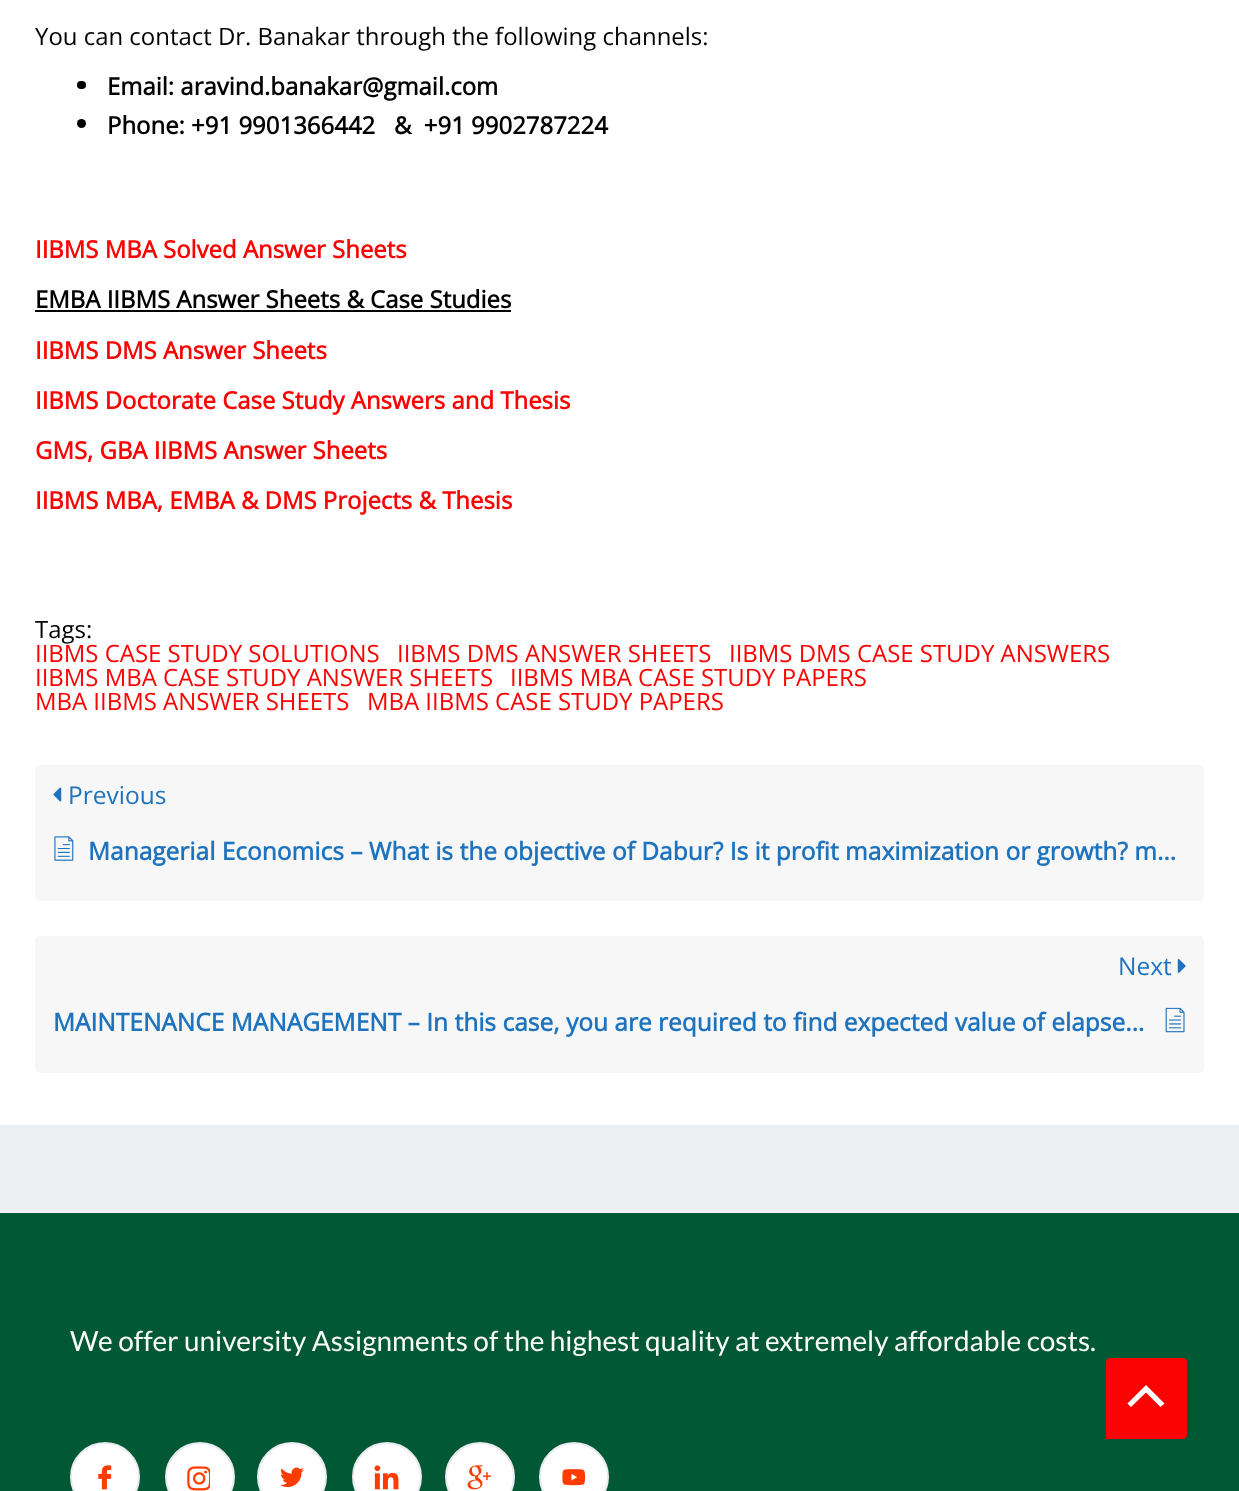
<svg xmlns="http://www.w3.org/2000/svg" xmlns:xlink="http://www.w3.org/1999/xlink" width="1239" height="1491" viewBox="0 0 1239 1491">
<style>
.cls-1{font:23.95px Open Sans;fill:#000000}
.cls-2{font:bold 23.95px Open Sans;fill:#000000}
.cls-3{font:bold 23.95px Open Sans;fill:#fa0303}
.cls-4{font:23.95px Open Sans;fill:#fa0303}
.cls-5{font:24.5px Open Sans;fill:#1e73be}
.cls-6{font:bold 24.5px Open Sans;fill:#1e73be}
.cls-7{font:28px Lato;fill:#fcfcfc}
</style>
<rect width="100%" height="100%" fill="#ecf0f2"/>
<rect fill="#ffffff" x="0" y="0" width="1239" height="1125"/>
<rect fill="#000000" x="77" y="81" width="9" height="8" rx="4"/>
<circle fill="#000000" cx="81.5" cy="123.5" r="4.5"/>
<rect fill="#000000" x="35" y="310" width="476" height="2"/>
<rect fill="#f7f7f7" x="35" y="765" width="1169" height="136" rx="5"/>
<image xlink:href="image0.png" x="53" y="787" width="9" height="15"/>
<image xlink:href="image1.png" x="54" y="836" width="20" height="25"/>
<rect fill="#f7f7f7" x="35" y="936" width="1169" height="137" rx="5"/>
<image xlink:href="image2.png" x="1177" y="959" width="9" height="14"/>
<image xlink:href="image3.png" x="1165" y="1007" width="20" height="26"/>
<rect fill="#005934" x="0" y="1213" width="1239" height="278"/>
<circle fill="#ffffff" stroke="#eaebf1" stroke-width="2" cx="105" cy="1477" r="34"/>
<image xlink:href="image4.png" x="98" y="1465" width="14" height="25"/>
<circle fill="#ffffff" stroke="#eaebf1" stroke-width="2" cx="200" cy="1477" r="34"/>
<image xlink:href="image5.png" x="187" y="1466" width="23" height="25"/>
<circle fill="#ffffff" stroke="#eaebf1" stroke-width="2" cx="292" cy="1477" r="34"/>
<image xlink:href="image6.png" x="280" y="1467" width="24" height="21"/>
<circle fill="#ffffff" stroke="#eaebf1" stroke-width="2" cx="387" cy="1477" r="34"/>
<image xlink:href="image7.png" x="374" y="1465" width="25" height="25"/>
<circle fill="#ffffff" stroke="#eaebf1" stroke-width="2" cx="480" cy="1477" r="34"/>
<image xlink:href="image8.png" x="467" y="1465" width="24" height="25"/>
<circle fill="#ffffff" stroke="#eaebf1" stroke-width="2" cx="574" cy="1477" r="34"/>
<image xlink:href="image9.png" x="562" y="1469" width="24" height="17"/>
<path fill="#fa0303" d="M1110 1358H1183C1185 1358 1187 1360 1187 1362V1435C1187 1437 1185 1439 1183 1439H1106V1362C1106 1360 1108 1358 1110 1358Z"/>
<path fill="#ffffff" d="M1164.5 1403.5L1146 1385L1127.5 1403.5L1131 1407L1146 1392.5L1160.5 1407Z"/>
<text class="cls-1" x="35" y="45">You can contact Dr. Banakar through the following channels:</text>
<text class="cls-2" xml:space="preserve"><tspan x="107" y="95">Email: aravind.banakar@gmail.com</tspan><tspan x="107" y="134">Phone: +91 9901366442   &amp;  +91 9902787224</tspan></text>
<text class="cls-3" x="35" y="258">IIBMS MBA Solved Answer Sheets</text>
<text class="cls-2" x="35" y="308">EMBA IIBMS Answer Sheets &amp; Case Studies</text>
<text class="cls-3" x="35" y="359">IIBMS DMS Answer Sheets</text>
<text class="cls-3" x="35" y="409">IIBMS Doctorate Case Study Answers and Thesis</text>
<text class="cls-3" x="35" y="459">GMS, GBA IIBMS Answer Sheets</text>
<text class="cls-3" x="35" y="509">IIBMS MBA, EMBA &amp; DMS Projects &amp; Thesis</text>
<text class="cls-1" x="35" y="638">Tags:</text>
<text class="cls-4" x="35" y="662">IIBMS CASE STUDY SOLUTIONS</text>
<text class="cls-4" x="397" y="662">IIBMS DMS ANSWER SHEETS</text>
<text class="cls-4" x="729" y="662">IIBMS DMS CASE STUDY ANSWERS</text>
<text class="cls-4" x="35" y="686">IIBMS MBA CASE STUDY ANSWER SHEETS</text>
<text class="cls-4" x="510" y="686">IIBMS MBA CASE STUDY PAPERS</text>
<text class="cls-4" x="35" y="710">MBA IIBMS ANSWER SHEETS</text>
<text class="cls-4" x="367" y="710">MBA IIBMS CASE STUDY PAPERS</text>
<text class="cls-5" x="68" y="804">Previous</text>
<text class="cls-6" x="88" y="860">Managerial Economics – What is the objective of Dabur? Is it profit maximization or growth? m…</text>
<text class="cls-5" x="1118" y="975">Next</text>
<text class="cls-6" x="53" y="1031">MAINTENANCE MANAGEMENT – In this case, you are required to find expected value of elapse…</text>
<text class="cls-7" x="70" y="1351">We offer university Assignments of the highest quality at extremely affordable costs.</text>
</svg>
